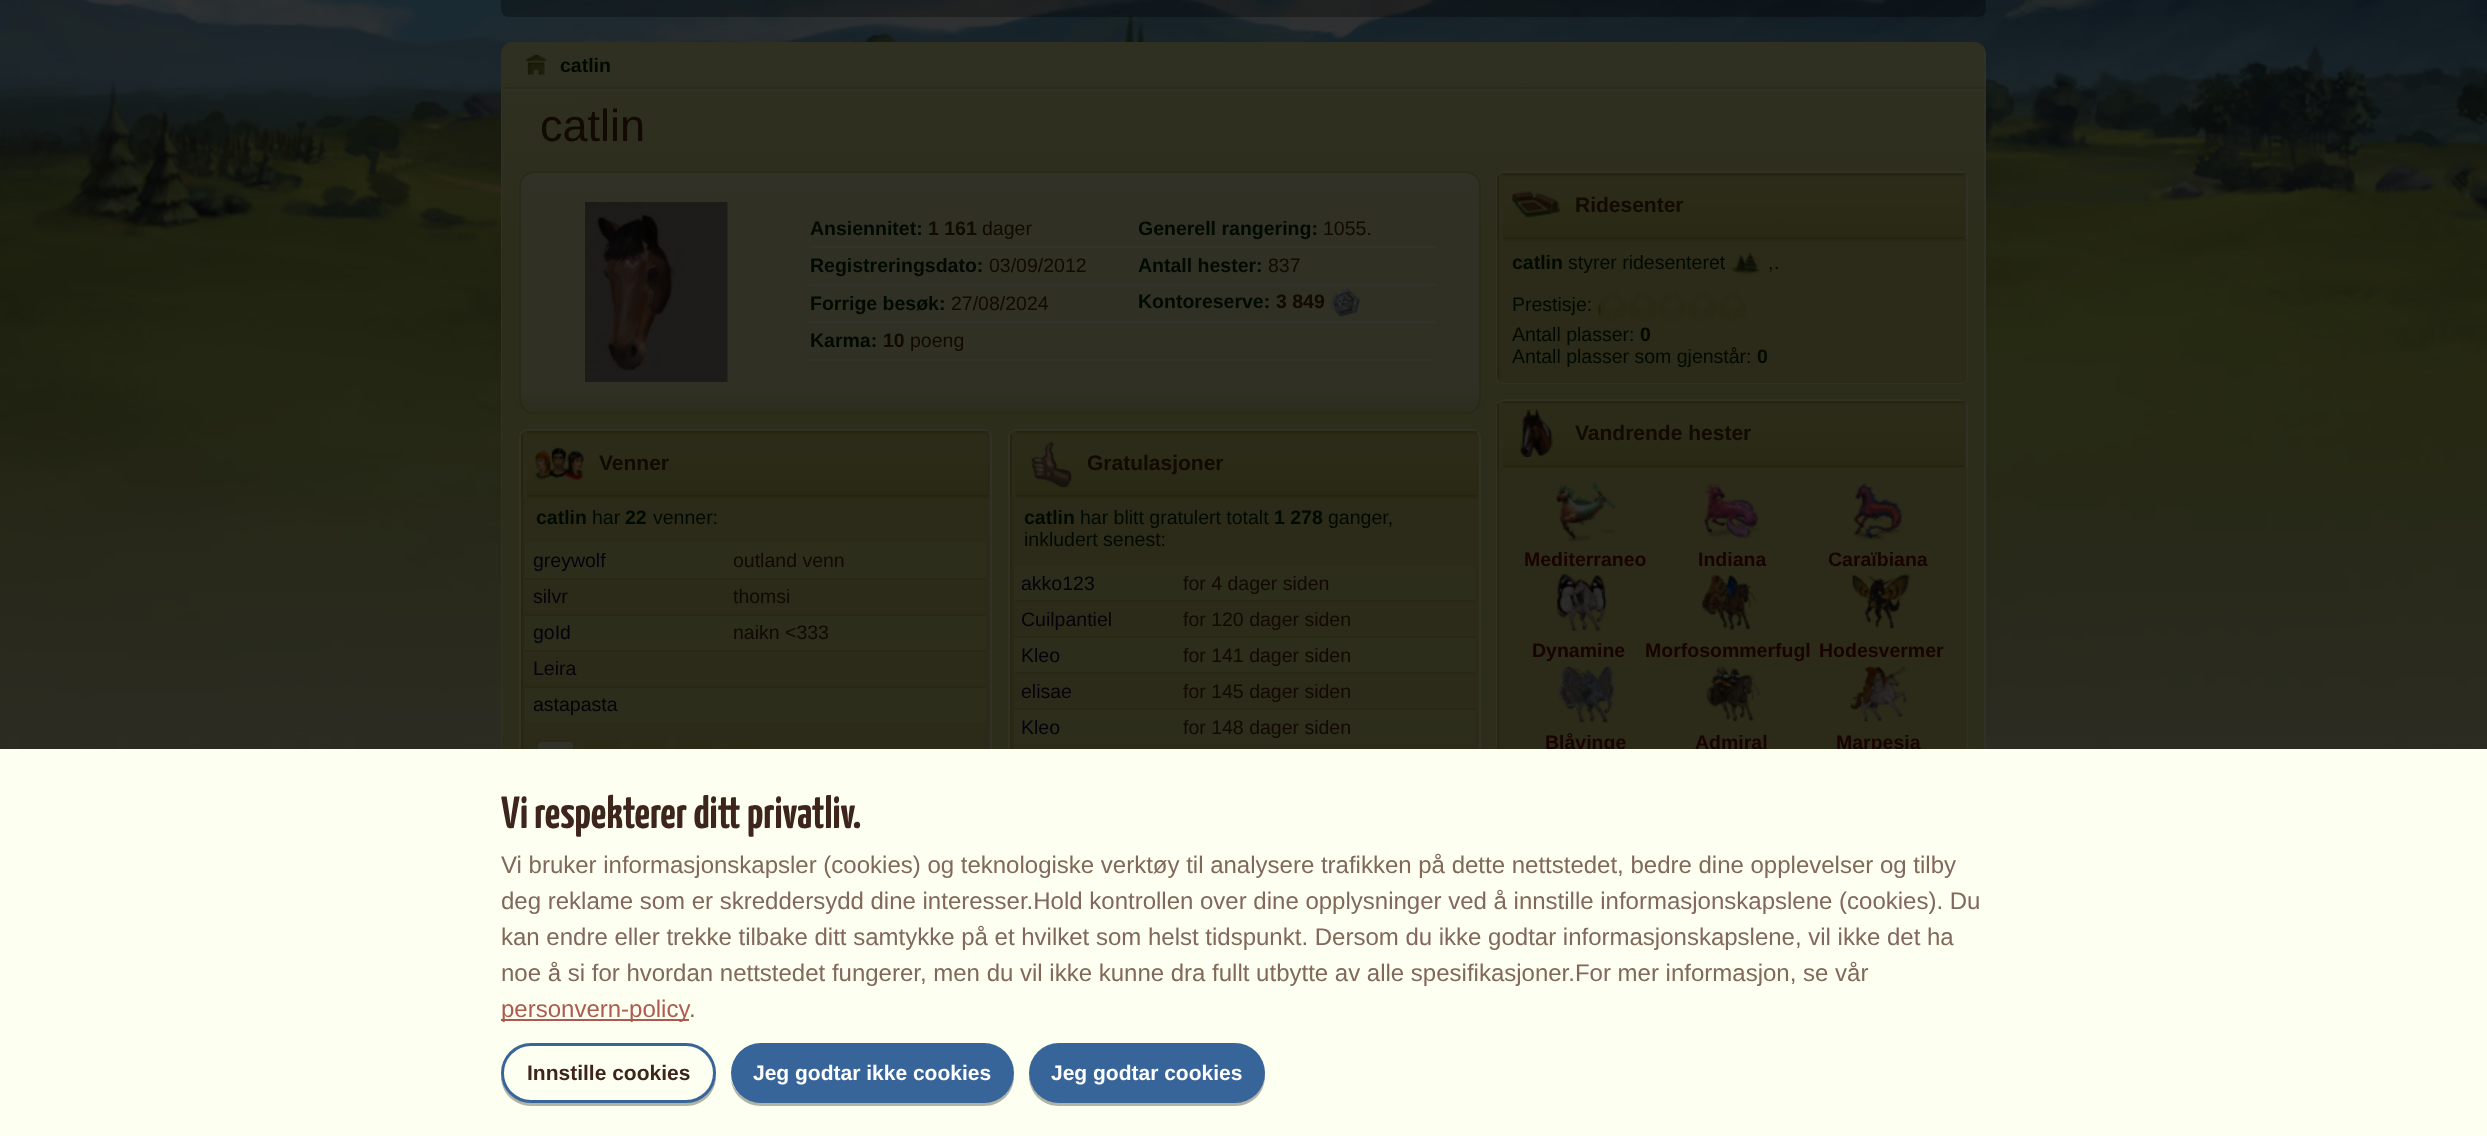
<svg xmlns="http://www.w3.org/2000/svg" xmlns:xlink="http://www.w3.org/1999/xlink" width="2487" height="1136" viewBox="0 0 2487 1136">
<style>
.cls-1{font:bold 19.5px Liberation Sans;fill:#000a00}
.cls-2{font:45px Liberation Sans;fill:#110902}
.cls-3{font:bold 19.5px Liberation Sans;fill:#110902}
.cls-4{font:19.5px Liberation Sans;fill:#110902}
.cls-5{font:bold 21px Liberation Sans;fill:#110902}
.cls-6{font:19.5px Liberation Sans;fill:#000a00}
.cls-7{font:19.5px Liberation Sans;fill:#04030c}
.cls-8{font:19.5px Liberation Sans;fill:#180300}
.cls-9{font:bold 19.5px Liberation Sans;fill:#180300}
.cls-10{font:bold 45px Yanone Kaffeesatz;fill:#3d251b}
.cls-11{font:24px Liberation Sans;fill:#82685b}
.cls-12{font:24px Liberation Sans;fill:#ad5b50}
.cls-13{font:bold 21px Liberation Sans;fill:#3d251b}
.cls-14{font:bold 21px Liberation Sans;fill:#ffffff}
</style>
<defs>
<linearGradient id="g1" gradientUnits="userSpaceOnUse" x1="1243" y1="42" x2="1244" y2="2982"><stop offset="0" stop-color="#303022"/><stop offset="0.07" stop-color="#2d2d1c"/><stop offset="1" stop-color="#2d2d1c"/></linearGradient>
<clipPath id="clip1"><rect x="519" y="171" width="962" height="243" rx="15"/></clipPath>
<linearGradient id="g2" gradientUnits="userSpaceOnUse" x1="1000" y1="172" x2="1000" y2="413"><stop offset="0" stop-color="#313127"/><stop offset="0.14" stop-color="#303024"/><stop offset="0.89" stop-color="#303024"/><stop offset="1" stop-color="#2d2d1e"/></linearGradient>
<linearGradient id="g3" gradientUnits="userSpaceOnUse" x1="531" y1="432" x2="531" y2="495"><stop offset="0" stop-color="#24240f"/><stop offset="0.02" stop-color="#282814"/><stop offset="0.05" stop-color="#2a2a17"/><stop offset="0.07" stop-color="#2c2b19"/><stop offset="0.38" stop-color="#2c2b19"/><stop offset="0.41" stop-color="#2b2b18"/><stop offset="0.48" stop-color="#2b2b18"/><stop offset="0.52" stop-color="#2b2a17"/><stop offset="0.69" stop-color="#2a2a17"/><stop offset="0.79" stop-color="#292916"/><stop offset="0.86" stop-color="#292916"/><stop offset="0.9" stop-color="#292914"/><stop offset="1" stop-color="#282814"/></linearGradient>
<linearGradient id="g4" gradientUnits="userSpaceOnUse" x1="988" y1="369" x2="988" y2="432"><stop offset="0" stop-color="#24240f"/><stop offset="0.02" stop-color="#282814"/><stop offset="0.05" stop-color="#2a2a17"/><stop offset="0.07" stop-color="#2c2b19"/><stop offset="0.38" stop-color="#2c2b19"/><stop offset="0.41" stop-color="#2b2b18"/><stop offset="0.48" stop-color="#2b2b18"/><stop offset="0.52" stop-color="#2b2a17"/><stop offset="0.69" stop-color="#2a2a17"/><stop offset="0.79" stop-color="#292916"/><stop offset="0.86" stop-color="#292916"/><stop offset="0.9" stop-color="#292914"/><stop offset="1" stop-color="#282814"/></linearGradient>
<clipPath id="clip2"><rect x="521" y="431" width="469" height="370" rx="6"/></clipPath>
<linearGradient id="g5" gradientUnits="userSpaceOnUse" x1="988" y1="432" x2="988" y2="495"><stop offset="0" stop-color="#24240f"/><stop offset="0.02" stop-color="#282814"/><stop offset="0.05" stop-color="#2a2a17"/><stop offset="0.07" stop-color="#2c2b19"/><stop offset="0.38" stop-color="#2c2b19"/><stop offset="0.41" stop-color="#2b2b18"/><stop offset="0.48" stop-color="#2b2b18"/><stop offset="0.52" stop-color="#2b2a17"/><stop offset="0.69" stop-color="#2a2a17"/><stop offset="0.79" stop-color="#292916"/><stop offset="0.86" stop-color="#292916"/><stop offset="0.9" stop-color="#292914"/><stop offset="1" stop-color="#282814"/></linearGradient>
<linearGradient id="g6" gradientUnits="userSpaceOnUse" x1="988" y1="495" x2="988" y2="558"><stop offset="0" stop-color="#24240f"/><stop offset="0.02" stop-color="#282814"/><stop offset="0.05" stop-color="#2a2a17"/><stop offset="0.07" stop-color="#2c2b19"/><stop offset="0.38" stop-color="#2c2b19"/><stop offset="0.41" stop-color="#2b2b18"/><stop offset="0.48" stop-color="#2b2b18"/><stop offset="0.52" stop-color="#2b2a17"/><stop offset="0.69" stop-color="#2a2a17"/><stop offset="0.79" stop-color="#292916"/><stop offset="0.86" stop-color="#292916"/><stop offset="0.9" stop-color="#292914"/><stop offset="1" stop-color="#282814"/></linearGradient>
<linearGradient id="g7" gradientUnits="userSpaceOnUse" x1="755" y1="432" x2="755" y2="495"><stop offset="0" stop-color="#24240f"/><stop offset="0.02" stop-color="#282814"/><stop offset="0.05" stop-color="#2a2a17"/><stop offset="0.07" stop-color="#2c2b19"/><stop offset="0.38" stop-color="#2c2b19"/><stop offset="0.41" stop-color="#2b2b18"/><stop offset="0.48" stop-color="#2b2b18"/><stop offset="0.52" stop-color="#2b2a17"/><stop offset="0.69" stop-color="#2a2a17"/><stop offset="0.79" stop-color="#292916"/><stop offset="0.86" stop-color="#292916"/><stop offset="0.9" stop-color="#292914"/><stop offset="1" stop-color="#282814"/></linearGradient>
<linearGradient id="g8" gradientUnits="userSpaceOnUse" x1="981" y1="432" x2="981" y2="495"><stop offset="0" stop-color="#24240f"/><stop offset="0.02" stop-color="#282814"/><stop offset="0.05" stop-color="#2a2a17"/><stop offset="0.07" stop-color="#2c2b19"/><stop offset="0.38" stop-color="#2c2b19"/><stop offset="0.41" stop-color="#2b2b18"/><stop offset="0.48" stop-color="#2b2b18"/><stop offset="0.52" stop-color="#2b2a17"/><stop offset="0.69" stop-color="#2a2a17"/><stop offset="0.79" stop-color="#292916"/><stop offset="0.86" stop-color="#292916"/><stop offset="0.9" stop-color="#292914"/><stop offset="1" stop-color="#282814"/></linearGradient>
<linearGradient id="g9" gradientUnits="userSpaceOnUse" x1="521" y1="641" x2="527" y2="641"><stop offset="0" stop-color="#25240f"/><stop offset="0.33" stop-color="#282814"/><stop offset="0.66" stop-color="#2a2a17"/><stop offset="1" stop-color="#2c2b19"/></linearGradient>
<linearGradient id="g10" gradientUnits="userSpaceOnUse" x1="1020" y1="432" x2="1020" y2="495"><stop offset="0" stop-color="#24240f"/><stop offset="0.02" stop-color="#282814"/><stop offset="0.05" stop-color="#2a2a17"/><stop offset="0.07" stop-color="#2c2b19"/><stop offset="0.38" stop-color="#2c2b19"/><stop offset="0.41" stop-color="#2b2b18"/><stop offset="0.48" stop-color="#2b2b18"/><stop offset="0.52" stop-color="#2b2a17"/><stop offset="0.69" stop-color="#2a2a17"/><stop offset="0.79" stop-color="#292916"/><stop offset="0.86" stop-color="#292916"/><stop offset="0.9" stop-color="#292914"/><stop offset="1" stop-color="#282814"/></linearGradient>
<linearGradient id="g11" gradientUnits="userSpaceOnUse" x1="1477" y1="369" x2="1477" y2="432"><stop offset="0" stop-color="#24240f"/><stop offset="0.02" stop-color="#282814"/><stop offset="0.05" stop-color="#2a2a17"/><stop offset="0.07" stop-color="#2c2b19"/><stop offset="0.38" stop-color="#2c2b19"/><stop offset="0.41" stop-color="#2b2b18"/><stop offset="0.48" stop-color="#2b2b18"/><stop offset="0.52" stop-color="#2b2a17"/><stop offset="0.69" stop-color="#2a2a17"/><stop offset="0.79" stop-color="#292916"/><stop offset="0.86" stop-color="#292916"/><stop offset="0.9" stop-color="#292914"/><stop offset="1" stop-color="#282814"/></linearGradient>
<clipPath id="clip3"><rect x="1010" y="431" width="469" height="328" rx="6"/></clipPath>
<linearGradient id="g12" gradientUnits="userSpaceOnUse" x1="1477" y1="432" x2="1477" y2="495"><stop offset="0" stop-color="#24240f"/><stop offset="0.02" stop-color="#282814"/><stop offset="0.05" stop-color="#2a2a17"/><stop offset="0.07" stop-color="#2c2b19"/><stop offset="0.38" stop-color="#2c2b19"/><stop offset="0.41" stop-color="#2b2b18"/><stop offset="0.48" stop-color="#2b2b18"/><stop offset="0.52" stop-color="#2b2a17"/><stop offset="0.69" stop-color="#2a2a17"/><stop offset="0.79" stop-color="#292916"/><stop offset="0.86" stop-color="#292916"/><stop offset="0.9" stop-color="#292914"/><stop offset="1" stop-color="#282814"/></linearGradient>
<linearGradient id="g13" gradientUnits="userSpaceOnUse" x1="1477" y1="495" x2="1477" y2="558"><stop offset="0" stop-color="#24240f"/><stop offset="0.02" stop-color="#282814"/><stop offset="0.05" stop-color="#2a2a17"/><stop offset="0.07" stop-color="#2c2b19"/><stop offset="0.38" stop-color="#2c2b19"/><stop offset="0.41" stop-color="#2b2b18"/><stop offset="0.48" stop-color="#2b2b18"/><stop offset="0.52" stop-color="#2b2a17"/><stop offset="0.69" stop-color="#2a2a17"/><stop offset="0.79" stop-color="#292916"/><stop offset="0.86" stop-color="#292916"/><stop offset="0.9" stop-color="#292914"/><stop offset="1" stop-color="#282814"/></linearGradient>
<linearGradient id="g14" gradientUnits="userSpaceOnUse" x1="1244" y1="432" x2="1244" y2="495"><stop offset="0" stop-color="#24240f"/><stop offset="0.02" stop-color="#282814"/><stop offset="0.05" stop-color="#2a2a17"/><stop offset="0.07" stop-color="#2c2b19"/><stop offset="0.38" stop-color="#2c2b19"/><stop offset="0.41" stop-color="#2b2b18"/><stop offset="0.48" stop-color="#2b2b18"/><stop offset="0.52" stop-color="#2b2a17"/><stop offset="0.69" stop-color="#2a2a17"/><stop offset="0.79" stop-color="#292916"/><stop offset="0.86" stop-color="#292916"/><stop offset="0.9" stop-color="#292914"/><stop offset="1" stop-color="#282814"/></linearGradient>
<linearGradient id="g15" gradientUnits="userSpaceOnUse" x1="1470" y1="432" x2="1470" y2="495"><stop offset="0" stop-color="#24240f"/><stop offset="0.02" stop-color="#282814"/><stop offset="0.05" stop-color="#2a2a17"/><stop offset="0.07" stop-color="#2c2b19"/><stop offset="0.38" stop-color="#2c2b19"/><stop offset="0.41" stop-color="#2b2b18"/><stop offset="0.48" stop-color="#2b2b18"/><stop offset="0.52" stop-color="#2b2a17"/><stop offset="0.69" stop-color="#2a2a17"/><stop offset="0.79" stop-color="#292916"/><stop offset="0.86" stop-color="#292916"/><stop offset="0.9" stop-color="#292914"/><stop offset="1" stop-color="#282814"/></linearGradient>
<linearGradient id="g16" gradientUnits="userSpaceOnUse" x1="1010" y1="620" x2="1016" y2="620"><stop offset="0" stop-color="#25240f"/><stop offset="0.33" stop-color="#282814"/><stop offset="0.66" stop-color="#2a2a17"/><stop offset="1" stop-color="#2c2b19"/></linearGradient>
<linearGradient id="g17" gradientUnits="userSpaceOnUse" x1="1508" y1="174" x2="1508" y2="237"><stop offset="0" stop-color="#24240f"/><stop offset="0.02" stop-color="#282814"/><stop offset="0.05" stop-color="#2a2a17"/><stop offset="0.07" stop-color="#2c2b19"/><stop offset="0.38" stop-color="#2c2b19"/><stop offset="0.41" stop-color="#2b2b18"/><stop offset="0.48" stop-color="#2b2b18"/><stop offset="0.52" stop-color="#2b2a17"/><stop offset="0.69" stop-color="#2a2a17"/><stop offset="0.79" stop-color="#292916"/><stop offset="0.86" stop-color="#292916"/><stop offset="0.9" stop-color="#292914"/><stop offset="1" stop-color="#282814"/></linearGradient>
<linearGradient id="g18" gradientUnits="userSpaceOnUse" x1="1964" y1="111" x2="1964" y2="174"><stop offset="0" stop-color="#24240f"/><stop offset="0.02" stop-color="#282814"/><stop offset="0.05" stop-color="#2a2a17"/><stop offset="0.07" stop-color="#2c2b19"/><stop offset="0.38" stop-color="#2c2b19"/><stop offset="0.41" stop-color="#2b2b18"/><stop offset="0.48" stop-color="#2b2b18"/><stop offset="0.52" stop-color="#2b2a17"/><stop offset="0.69" stop-color="#2a2a17"/><stop offset="0.79" stop-color="#292916"/><stop offset="0.86" stop-color="#292916"/><stop offset="0.9" stop-color="#292914"/><stop offset="1" stop-color="#282814"/></linearGradient>
<clipPath id="clip4"><rect x="1497" y="173" width="470" height="210" rx="6"/></clipPath>
<linearGradient id="g19" gradientUnits="userSpaceOnUse" x1="1964" y1="174" x2="1964" y2="237"><stop offset="0" stop-color="#24240f"/><stop offset="0.02" stop-color="#282814"/><stop offset="0.05" stop-color="#2a2a17"/><stop offset="0.07" stop-color="#2c2b19"/><stop offset="0.38" stop-color="#2c2b19"/><stop offset="0.41" stop-color="#2b2b18"/><stop offset="0.48" stop-color="#2b2b18"/><stop offset="0.52" stop-color="#2b2a17"/><stop offset="0.69" stop-color="#2a2a17"/><stop offset="0.79" stop-color="#292916"/><stop offset="0.86" stop-color="#292916"/><stop offset="0.9" stop-color="#292914"/><stop offset="1" stop-color="#282814"/></linearGradient>
<linearGradient id="g20" gradientUnits="userSpaceOnUse" x1="1964" y1="237" x2="1964" y2="300"><stop offset="0" stop-color="#24240f"/><stop offset="0.02" stop-color="#282814"/><stop offset="0.05" stop-color="#2a2a17"/><stop offset="0.07" stop-color="#2c2b19"/><stop offset="0.38" stop-color="#2c2b19"/><stop offset="0.41" stop-color="#2b2b18"/><stop offset="0.48" stop-color="#2b2b18"/><stop offset="0.52" stop-color="#2b2a17"/><stop offset="0.69" stop-color="#2a2a17"/><stop offset="0.79" stop-color="#292916"/><stop offset="0.86" stop-color="#292916"/><stop offset="0.9" stop-color="#292914"/><stop offset="1" stop-color="#282814"/></linearGradient>
<linearGradient id="g21" gradientUnits="userSpaceOnUse" x1="1732" y1="174" x2="1732" y2="237"><stop offset="0" stop-color="#24240f"/><stop offset="0.02" stop-color="#282814"/><stop offset="0.05" stop-color="#2a2a17"/><stop offset="0.07" stop-color="#2c2b19"/><stop offset="0.38" stop-color="#2c2b19"/><stop offset="0.41" stop-color="#2b2b18"/><stop offset="0.48" stop-color="#2b2b18"/><stop offset="0.52" stop-color="#2b2a17"/><stop offset="0.69" stop-color="#2a2a17"/><stop offset="0.79" stop-color="#292916"/><stop offset="0.86" stop-color="#292916"/><stop offset="0.9" stop-color="#292914"/><stop offset="1" stop-color="#282814"/></linearGradient>
<linearGradient id="g22" gradientUnits="userSpaceOnUse" x1="1958" y1="174" x2="1958" y2="237"><stop offset="0" stop-color="#24240f"/><stop offset="0.02" stop-color="#282814"/><stop offset="0.05" stop-color="#2a2a17"/><stop offset="0.07" stop-color="#2c2b19"/><stop offset="0.38" stop-color="#2c2b19"/><stop offset="0.41" stop-color="#2b2b18"/><stop offset="0.48" stop-color="#2b2b18"/><stop offset="0.52" stop-color="#2b2a17"/><stop offset="0.69" stop-color="#2a2a17"/><stop offset="0.79" stop-color="#292916"/><stop offset="0.86" stop-color="#292916"/><stop offset="0.9" stop-color="#292914"/><stop offset="1" stop-color="#282814"/></linearGradient>
<linearGradient id="g23" gradientUnits="userSpaceOnUse" x1="1497" y1="303" x2="1503" y2="303"><stop offset="0" stop-color="#25240f"/><stop offset="0.33" stop-color="#282814"/><stop offset="0.66" stop-color="#2a2a17"/><stop offset="1" stop-color="#2c2b19"/></linearGradient>
<linearGradient id="g24" gradientUnits="userSpaceOnUse" x1="1508" y1="402" x2="1508" y2="465"><stop offset="0" stop-color="#24240f"/><stop offset="0.02" stop-color="#282814"/><stop offset="0.05" stop-color="#2a2a17"/><stop offset="0.07" stop-color="#2c2b19"/><stop offset="0.38" stop-color="#2c2b19"/><stop offset="0.41" stop-color="#2b2b18"/><stop offset="0.48" stop-color="#2b2b18"/><stop offset="0.52" stop-color="#2b2a17"/><stop offset="0.69" stop-color="#2a2a17"/><stop offset="0.79" stop-color="#292916"/><stop offset="0.86" stop-color="#292916"/><stop offset="0.9" stop-color="#292914"/><stop offset="1" stop-color="#282814"/></linearGradient>
<linearGradient id="g25" gradientUnits="userSpaceOnUse" x1="1964" y1="339" x2="1964" y2="402"><stop offset="0" stop-color="#24240f"/><stop offset="0.02" stop-color="#282814"/><stop offset="0.05" stop-color="#2a2a17"/><stop offset="0.07" stop-color="#2c2b19"/><stop offset="0.38" stop-color="#2c2b19"/><stop offset="0.41" stop-color="#2b2b18"/><stop offset="0.48" stop-color="#2b2b18"/><stop offset="0.52" stop-color="#2b2a17"/><stop offset="0.69" stop-color="#2a2a17"/><stop offset="0.79" stop-color="#292916"/><stop offset="0.86" stop-color="#292916"/><stop offset="0.9" stop-color="#292914"/><stop offset="1" stop-color="#282814"/></linearGradient>
<clipPath id="clip5"><rect x="1497" y="401" width="470" height="390" rx="6"/></clipPath>
<linearGradient id="g26" gradientUnits="userSpaceOnUse" x1="1964" y1="402" x2="1964" y2="465"><stop offset="0" stop-color="#24240f"/><stop offset="0.02" stop-color="#282814"/><stop offset="0.05" stop-color="#2a2a17"/><stop offset="0.07" stop-color="#2c2b19"/><stop offset="0.38" stop-color="#2c2b19"/><stop offset="0.41" stop-color="#2b2b18"/><stop offset="0.48" stop-color="#2b2b18"/><stop offset="0.52" stop-color="#2b2a17"/><stop offset="0.69" stop-color="#2a2a17"/><stop offset="0.79" stop-color="#292916"/><stop offset="0.86" stop-color="#292916"/><stop offset="0.9" stop-color="#292914"/><stop offset="1" stop-color="#282814"/></linearGradient>
<linearGradient id="g27" gradientUnits="userSpaceOnUse" x1="1964" y1="465" x2="1964" y2="528"><stop offset="0" stop-color="#24240f"/><stop offset="0.02" stop-color="#282814"/><stop offset="0.05" stop-color="#2a2a17"/><stop offset="0.07" stop-color="#2c2b19"/><stop offset="0.38" stop-color="#2c2b19"/><stop offset="0.41" stop-color="#2b2b18"/><stop offset="0.48" stop-color="#2b2b18"/><stop offset="0.52" stop-color="#2b2a17"/><stop offset="0.69" stop-color="#2a2a17"/><stop offset="0.79" stop-color="#292916"/><stop offset="0.86" stop-color="#292916"/><stop offset="0.9" stop-color="#292914"/><stop offset="1" stop-color="#282814"/></linearGradient>
<linearGradient id="g28" gradientUnits="userSpaceOnUse" x1="1732" y1="402" x2="1732" y2="465"><stop offset="0" stop-color="#24240f"/><stop offset="0.02" stop-color="#282814"/><stop offset="0.05" stop-color="#2a2a17"/><stop offset="0.07" stop-color="#2c2b19"/><stop offset="0.38" stop-color="#2c2b19"/><stop offset="0.41" stop-color="#2b2b18"/><stop offset="0.48" stop-color="#2b2b18"/><stop offset="0.52" stop-color="#2b2a17"/><stop offset="0.69" stop-color="#2a2a17"/><stop offset="0.79" stop-color="#292916"/><stop offset="0.86" stop-color="#292916"/><stop offset="0.9" stop-color="#292914"/><stop offset="1" stop-color="#282814"/></linearGradient>
<linearGradient id="g29" gradientUnits="userSpaceOnUse" x1="1958" y1="402" x2="1958" y2="465"><stop offset="0" stop-color="#24240f"/><stop offset="0.02" stop-color="#282814"/><stop offset="0.05" stop-color="#2a2a17"/><stop offset="0.07" stop-color="#2c2b19"/><stop offset="0.38" stop-color="#2c2b19"/><stop offset="0.41" stop-color="#2b2b18"/><stop offset="0.48" stop-color="#2b2b18"/><stop offset="0.52" stop-color="#2b2a17"/><stop offset="0.69" stop-color="#2a2a17"/><stop offset="0.79" stop-color="#292916"/><stop offset="0.86" stop-color="#292916"/><stop offset="0.9" stop-color="#292914"/><stop offset="1" stop-color="#282814"/></linearGradient>
<linearGradient id="g30" gradientUnits="userSpaceOnUse" x1="1497" y1="613" x2="1503" y2="613"><stop offset="0" stop-color="#25240f"/><stop offset="0.33" stop-color="#282814"/><stop offset="0.66" stop-color="#2a2a17"/><stop offset="1" stop-color="#2c2b19"/></linearGradient>
</defs>
<rect width="100%" height="100%" fill="#ffffff"/>
<image xlink:href="image0.png" x="0" y="0" width="2487" height="749"/>
<rect fill="#000000" fill-opacity="0.3" x="501" y="-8" width="1485" height="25" rx="8"/>
<path fill="url(#g1)" d="M513 42H1974C1980 42 1984 47 1984 54V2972C1984 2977 1980 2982 1974 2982H513C507 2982 502 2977 502 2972V54C502 47 507 42 513 42Z"/>
<path fill="#313127" fill-rule="evenodd" d="M513 42H1974C1981 42 1986 47 1986 54V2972C1986 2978 1981 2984 1974 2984H513C506 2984 501 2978 501 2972V54C501 47 506 42 513 42ZM513 42H1974C1980 42 1984 47 1984 54V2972C1984 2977 1980 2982 1974 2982H513C507 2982 502 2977 502 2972V54C502 47 507 42 513 42Z"/>
<image xlink:href="image1.png" x="526" y="55" width="20" height="20"/>
<rect fill="#313127" x="503" y="89" width="1482" height="2"/>
<rect fill="#2c2c1b" x="503" y="87" width="1482" height="2"/>
<g clip-path="url(#clip1)">
<rect fill="url(#g2)" x="519" y="173" width="962" height="240"/>
</g>
<rect fill="none" stroke="#2a2a18" stroke-width="2" x="520" y="172" width="960" height="241" rx="14"/>
<image xlink:href="image2.png" x="585" y="202" width="143" height="180"/>
<rect fill="#33332d" x="810" y="246" width="626" height="2"/>
<rect fill="#33332d" x="810" y="284" width="626" height="2"/>
<rect fill="#33332d" x="810" y="321" width="626" height="2"/>
<image xlink:href="image3.png" x="1330" y="288" width="30" height="29"/>
<rect fill="#33332d" x="810" y="359" width="626" height="2"/>
<rect fill="none" stroke="#313126" stroke-width="2" x="520" y="430" width="471" height="372" rx="7"/>
<path fill="#2c2b19" d="M527 431V497H521V437C521 433.5 523.5 431 527 431Z"/>
<rect fill="#25240f" x="521" y="434" width="2" height="63"/>
<rect fill="url(#g3)" x="527" y="433" width="9" height="62"/>
<rect fill="#24240f" x="527" y="431" width="460" height="2"/>
<rect fill="#24240f" x="527" y="495" width="460" height="2"/>
<rect fill="url(#g4)" x="987" y="431" width="2" height="1"/>
<g clip-path="url(#clip2)">
<rect fill="url(#g5)" x="987" y="432" width="2" height="63"/>
</g>
<rect fill="url(#g6)" x="987" y="495" width="2" height="2"/>
<path fill="#24240f" fill-rule="evenodd" d="M987 432H987.5ZM988.5 433V463.5H988C988 460 988.5 433 987.5 432Z"/>
<path fill="#2a2a17" d="M990 496L988 495V433C989 434 990 435 990 437Z"/>
<path fill="#24240f" d="M989.5 496L988.5 495V463.5H988V495H987V496Z"/>
<rect fill="url(#g7)" x="536" y="433" width="439" height="62"/>
<image xlink:href="image4.png" x="535" y="447" width="49" height="33"/>
<rect fill="url(#g8)" x="975" y="433" width="12" height="62"/>
<rect fill="#2c2b19" x="527" y="499" width="463" height="250"/>
<rect fill="url(#g9)" x="521" y="497" width="6" height="252"/>
<rect fill="#292815" x="527" y="497" width="463" height="2"/>
<rect fill="#2d2d1c" x="525" y="543" width="461" height="35"/>
<rect fill="#292815" x="525" y="578" width="461" height="2"/>
<rect fill="#2d2d1c" x="525" y="616" width="461" height="34"/>
<rect fill="#292815" x="525" y="614" width="461" height="2"/>
<rect fill="#292815" x="525" y="650" width="461" height="2"/>
<rect fill="#2d2d1c" x="525" y="688" width="461" height="34"/>
<rect fill="#292815" x="525" y="686" width="461" height="2"/>
<rect fill="#323228" stroke="#2a2a16" stroke-width="2" x="537" y="741" width="37" height="34" rx="4"/>
<rect fill="#2a2a16" x="582" y="740" width="39" height="36" rx="5"/>
<rect fill="#2a2a16" x="629" y="740" width="39" height="36" rx="5"/>
<rect fill="#2a2a16" x="675" y="740" width="39" height="36" rx="5"/>
<rect fill="#2a2a16" x="722" y="740" width="39" height="36" rx="5"/>
<rect fill="none" stroke="#313126" stroke-width="2" x="1009" y="430" width="471" height="330" rx="7"/>
<path fill="#2c2b19" d="M1016 431V497H1010V437C1010 433.5 1012.5 431 1016 431Z"/>
<rect fill="#25240f" x="1010" y="434" width="2" height="63"/>
<rect fill="url(#g10)" x="1016" y="433" width="9" height="62"/>
<rect fill="#24240f" x="1016" y="431" width="460" height="2"/>
<rect fill="#24240f" x="1016" y="495" width="460" height="2"/>
<rect fill="url(#g11)" x="1476" y="431" width="2" height="1"/>
<g clip-path="url(#clip3)">
<rect fill="url(#g12)" x="1476" y="432" width="2" height="63"/>
</g>
<rect fill="url(#g13)" x="1476" y="495" width="2" height="2"/>
<path fill="#2a2a17" d="M1479 496L1478 495V434L1479 437Z"/>
<rect fill="url(#g14)" x="1025" y="433" width="439" height="62"/>
<image xlink:href="image5.png" x="1031" y="441" width="41" height="46"/>
<rect fill="url(#g15)" x="1464" y="433" width="12" height="62"/>
<rect fill="#2c2b19" x="1016" y="499" width="463" height="245"/>
<rect fill="url(#g16)" x="1010" y="497" width="6" height="247"/>
<rect fill="#292815" x="1016" y="497" width="463" height="2"/>
<rect fill="#2d2d1c" x="1014" y="566" width="461" height="34"/>
<rect fill="#292815" x="1014" y="600" width="461" height="2"/>
<rect fill="#2d2d1c" x="1014" y="638" width="461" height="34"/>
<rect fill="#292815" x="1014" y="636" width="461" height="2"/>
<rect fill="#292815" x="1014" y="672" width="461" height="2"/>
<rect fill="#2d2d1c" x="1014" y="710" width="461" height="34"/>
<rect fill="#292815" x="1014" y="708" width="461" height="2"/>
<rect fill="#2c2b19" x="1015" y="744" width="464" height="5"/>
<image xlink:href="image6.png" x="1010" y="744" width="5" height="5"/>
<rect fill="none" stroke="#313126" stroke-width="2" x="1497" y="172" width="470" height="211" rx="7"/>
<path fill="#2c2b19" d="M1503 173V239H1497V179C1497 175.5 1499.5 173 1503 173Z"/>
<rect fill="#25240f" x="1497" y="176" width="2" height="63"/>
<rect fill="url(#g17)" x="1503" y="175" width="9" height="62"/>
<rect fill="#24240f" x="1503" y="173" width="461" height="2"/>
<rect fill="#24240f" x="1503" y="237" width="461" height="2"/>
<rect fill="url(#g18)" x="1964" y="173" width="2" height="1"/>
<g clip-path="url(#clip4)">
<rect fill="url(#g19)" x="1964" y="174" width="2" height="63"/>
</g>
<rect fill="url(#g20)" x="1964" y="237" width="2" height="2"/>
<path fill="#24240f" d="M1964 174L1965 176V174.5Z"/>
<path fill="#2a2a17" d="M1965 176V237L1966 238V176L1965 175Z"/>
<path fill="#24240f" d="M1966 238L1965 237H1964V238Z"/>
<rect fill="url(#g21)" x="1512" y="175" width="440" height="62"/>
<image xlink:href="image7.png" x="1512" y="191" width="48" height="27"/>
<rect fill="url(#g22)" x="1952" y="175" width="12" height="62"/>
<rect fill="#2c2b19" x="1503" y="241" width="464" height="127"/>
<rect fill="url(#g23)" x="1497" y="239" width="6" height="129"/>
<rect fill="#292815" x="1503" y="239" width="464" height="2"/>
<image xlink:href="image8.png" x="1731" y="252" width="30" height="23"/>
<image xlink:href="image9.png" x="1598" y="292" width="149" height="30"/>
<image xlink:href="image10.png" x="1597" y="302" width="4" height="16"/>
<g clip-path="url(#clip4)">
<path fill="#2c2b19" d="M1502 368H1967V377C1967 380.5 1964.5 383 1961 383H1502Z"/>
</g>
<image xlink:href="image11.png" x="1497" y="368" width="7" height="15"/>
<rect fill="none" stroke="#313126" stroke-width="2" x="1497" y="400" width="470" height="391" rx="7"/>
<path fill="#2c2b19" d="M1503 401V467H1497V407C1497 403.5 1499.5 401 1503 401Z"/>
<rect fill="#25240f" x="1497" y="404" width="2" height="63"/>
<rect fill="url(#g24)" x="1503" y="403" width="9" height="62"/>
<rect fill="#24240f" x="1503" y="401" width="461" height="2"/>
<rect fill="#24240f" x="1503" y="465" width="461" height="2"/>
<rect fill="url(#g25)" x="1964" y="401" width="2" height="1"/>
<g clip-path="url(#clip5)">
<rect fill="url(#g26)" x="1964" y="402" width="2" height="63"/>
</g>
<rect fill="url(#g27)" x="1964" y="465" width="2" height="2"/>
<path fill="#24240f" d="M1964 402L1965 404V402.5Z"/>
<path fill="#2a2a17" d="M1965 404V465L1966 466V404L1965 403Z"/>
<path fill="#24240f" d="M1966 466L1965 465H1964V466Z"/>
<rect fill="url(#g28)" x="1512" y="403" width="440" height="62"/>
<image xlink:href="image12.png" x="1519" y="409" width="34" height="48"/>
<rect fill="url(#g29)" x="1952" y="403" width="12" height="62"/>
<rect fill="#292815" x="1497" y="467" width="470" height="1"/>
<rect fill="#2c2b19" x="1503" y="468" width="464" height="281"/>
<rect fill="url(#g30)" x="1497" y="468" width="6" height="281"/>
<image xlink:href="image13.png" x="1555" y="482" width="61" height="60"/>
<image xlink:href="image14.png" x="1703" y="482" width="58" height="57"/>
<image xlink:href="image15.png" x="1853" y="482" width="50" height="58"/>
<image xlink:href="image16.png" x="1556" y="574" width="51" height="58"/>
<image xlink:href="image17.png" x="1701" y="574" width="56" height="57"/>
<image xlink:href="image18.png" x="1851" y="574" width="59" height="55"/>
<image xlink:href="image19.png" x="1558" y="665" width="58" height="58"/>
<image xlink:href="image20.png" x="1706" y="665" width="54" height="57"/>
<image xlink:href="image21.png" x="1849" y="665" width="58" height="58"/>
<text class="cls-1" x="560" y="72">catlin</text>
<text class="cls-2" x="540" y="141">catlin</text>
<text class="cls-1" x="810" y="235">Ansiennitet:</text>
<text class="cls-3" x="928" y="235">1 161</text>
<text class="cls-4" x="982" y="235">dager</text>
<text class="cls-1" x="1138" y="235">Generell rangering:</text>
<text class="cls-4" x="1323" y="235">1055.</text>
<text class="cls-1" x="810" y="272">Registreringsdato:</text>
<text class="cls-4" x="989" y="272">03/09/2012</text>
<text class="cls-1" x="1138" y="272">Antall hester:</text>
<text class="cls-4" x="1268" y="272">837</text>
<text class="cls-1" x="810" y="310">Forrige besøk:</text>
<text class="cls-4" x="951" y="310">27/08/2024</text>
<text class="cls-1" x="1138" y="308">Kontoreserve:</text>
<text class="cls-3" x="1276" y="308">3 849</text>
<text class="cls-1" x="810" y="347">Karma:</text>
<text class="cls-3" x="883" y="347">10</text>
<text class="cls-4" x="910" y="347">poeng</text>
<text class="cls-5" x="599" y="470">Venner</text>
<text class="cls-1" x="536" y="524">catlin</text>
<text class="cls-6" x="592" y="524">har</text>
<text class="cls-1" x="625" y="524">22</text>
<text class="cls-6" x="653" y="524">venner:</text>
<text class="cls-7" x="533" y="567">greywolf</text>
<text class="cls-4" x="733" y="567">outland venn</text>
<text class="cls-7" x="533" y="603">silvr</text>
<text class="cls-4" x="733" y="603">thomsi</text>
<text class="cls-7" x="533" y="639">goId</text>
<text class="cls-4" x="733" y="639">naikn &lt;333</text>
<text class="cls-7"><tspan x="533" y="675">Leira</tspan><tspan x="533" y="711">astapasta</tspan></text>
<text class="cls-5" x="1087" y="470">Gratulasjoner</text>
<text class="cls-1" x="1024" y="524">catlin</text>
<text class="cls-6" x="1080" y="524">har blitt gratulert totalt</text>
<text class="cls-1" x="1274" y="524">1 278</text>
<text class="cls-6" x="1328" y="524">ganger,</text>
<text class="cls-6" x="1024" y="546">inkludert senest:</text>
<text class="cls-7" x="1021" y="590">akko123</text>
<text class="cls-4" x="1183" y="590">for 4 dager siden</text>
<text class="cls-7" x="1021" y="626">Cuilpantiel</text>
<text class="cls-4" x="1183" y="626">for 120 dager siden</text>
<text class="cls-7" x="1021" y="662">Kleo</text>
<text class="cls-4" x="1183" y="662">for 141 dager siden</text>
<text class="cls-7" x="1021" y="698">elisae</text>
<text class="cls-4" x="1183" y="698">for 145 dager siden</text>
<text class="cls-7" x="1021" y="734">Kleo</text>
<text class="cls-4" x="1183" y="734">for 148 dager siden</text>
<text class="cls-5" x="1575" y="212">Ridesenter</text>
<text class="cls-1" x="1512" y="269">catlin</text>
<text class="cls-6" x="1568" y="269">styrer ridesenteret</text>
<text class="cls-8" x="1768" y="269">,</text>
<text class="cls-6" x="1774" y="269">.</text>
<text class="cls-6"><tspan x="1512" y="311">Prestisje:</tspan><tspan x="1512" y="341">Antall plasser:</tspan></text>
<text class="cls-1" x="1640" y="341">0</text>
<text class="cls-6" x="1512" y="363">Antall plasser som gjenstår:</text>
<text class="cls-1" x="1757" y="363">0</text>
<text class="cls-5" x="1575" y="440">Vandrende hester</text>
<text class="cls-9" x="1524" y="566">Mediterraneo</text>
<text class="cls-9" x="1698" y="566">Indiana</text>
<text class="cls-9" x="1828" y="566">Caraïbiana</text>
<text class="cls-9" x="1532" y="657">Dynamine</text>
<text class="cls-9" x="1645" y="657">Morfosommerfugl</text>
<text class="cls-9" x="1819" y="657">Hodesvermer</text>
<text class="cls-9" x="1545" y="749">Blåvinge</text>
<text class="cls-9" x="1695" y="749">Admiral</text>
<text class="cls-9" x="1836" y="749">Marpesia</text>
<rect fill="#fdfff0" x="0" y="749" width="2487" height="387"/>
<text class="cls-10" x="501" y="828">Vi respekterer ditt privatliv.</text>
<text class="cls-11"><tspan x="501" y="873">Vi bruker informasjonskapsler (cookies) og teknologiske verktøy til analysere trafikken på dette nettstedet, bedre dine opplevelser og tilby</tspan><tspan x="501" y="909">deg reklame som er skreddersydd dine interesser.Hold kontrollen over dine opplysninger ved å innstille informasjonskapslene (cookies). Du</tspan><tspan x="501" y="945">kan endre eller trekke tilbake ditt samtykke på et hvilket som helst tidspunkt. Dersom du ikke godtar informasjonskapslene, vil ikke det ha</tspan><tspan x="501" y="981">noe å si for hvordan nettstedet fungerer, men du vil ikke kunne dra fullt utbytte av alle spesifikasjoner.For mer informasjon, se vår</tspan></text>
<rect fill="#ad5b50" x="501" y="1019" width="188" height="2"/>
<text class="cls-12" x="501" y="1017">personvern-policy</text>
<text class="cls-11" x="689" y="1017">.</text>
<path fill="#b1b3a8" d="M501 1074V1076C501 1093 514 1106 531 1106H686C703 1106 716 1093 716 1076L715 1070L716 1072C716 1089 702 1102 686 1102H531C515 1102 502 1090 501 1074Z"/>
<rect fill="#fdfff0" stroke="#37659a" stroke-width="3" x="502.5" y="1044.5" width="212" height="57" rx="28.5"/>
<text class="cls-13" x="527" y="1080">Innstille cookies</text>
<path fill="#b1b3a8" d="M731 1079C732 1094 745 1106 761 1106H984C1001 1106 1014 1093 1014 1076V1074C1013 1090 1000 1102 984 1102H760C746 1102 734 1092 731 1079Z"/>
<rect fill="#37659a" x="731" y="1043" width="283" height="60" rx="30"/>
<text class="cls-14" x="753" y="1080">Jeg godtar ikke cookies</text>
<path fill="#b1b3a8" d="M1029 1074V1076C1029 1093 1042 1106 1059 1106H1235C1252 1106 1265 1093 1265 1076L1264 1070V1072C1264 1089 1251 1102 1234 1102H1059C1043 1102 1030 1090 1029 1074Z"/>
<rect fill="#37659a" x="1029" y="1043" width="236" height="60" rx="30"/>
<text class="cls-14" x="1051" y="1080">Jeg godtar cookies</text>
</svg>
